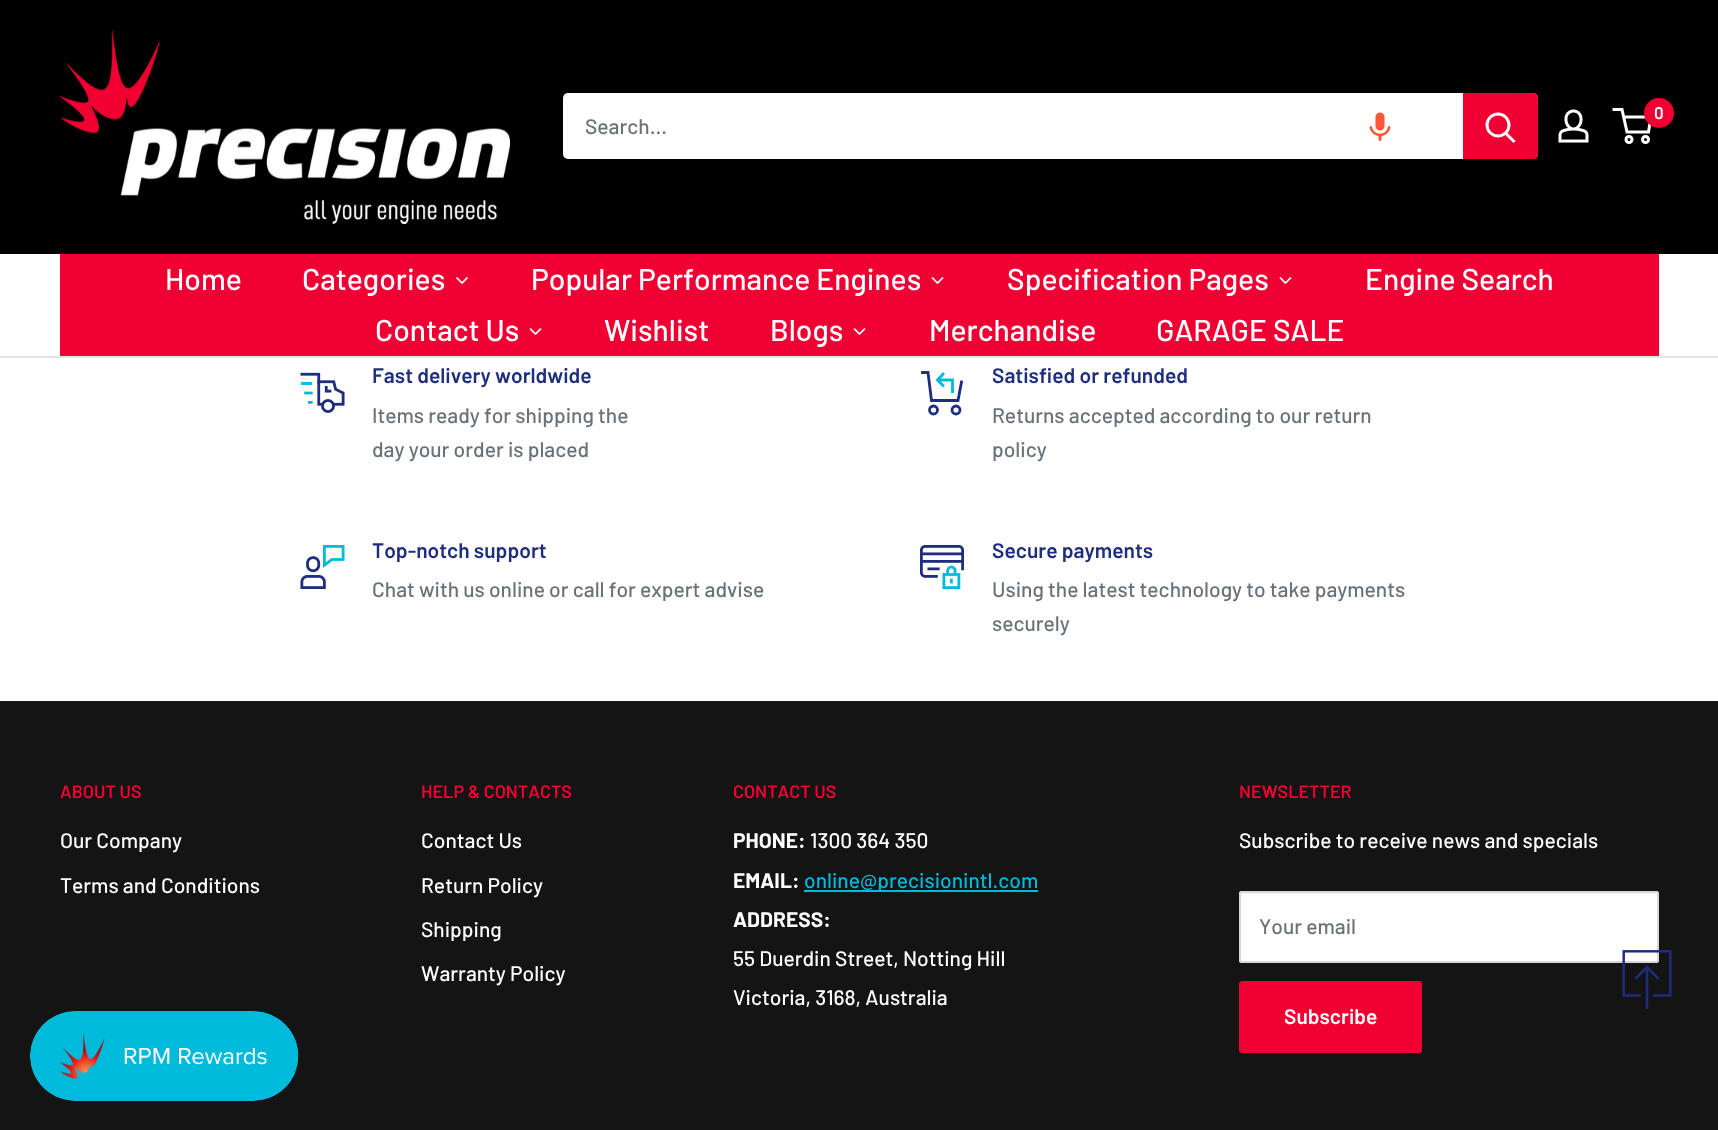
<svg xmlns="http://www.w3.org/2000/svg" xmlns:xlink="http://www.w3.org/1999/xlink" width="1718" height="1130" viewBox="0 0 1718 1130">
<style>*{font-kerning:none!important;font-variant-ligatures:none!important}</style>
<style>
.cls-1{font:600 17px Barlow;fill:#ffffff}
.cls-2{font:500 21px Barlow;fill:#677279}
.cls-3{font:500 30px Barlow;fill:#ffffff}
.cls-4{font:600 21px Barlow;fill:#1e2d7d}
.cls-5{font:600 18px Barlow;fill:#f00032}
.cls-6{font:500 21px Barlow;fill:#ffffff}
.cls-7{font:bold 21px Barlow;fill:#ffffff}
.cls-8{font:500 21px Barlow;fill:#00badb}
.cls-9{font:600 21px Barlow;fill:#ffffff}
</style>
<rect width="100%" height="100%" fill="#ffffff"/>
<rect fill="#000000" x="0" y="0" width="1718" height="254"/>
<image xlink:href="image0.png" x="60" y="30" width="450" height="194"/>
<image xlink:href="image1.png" x="1558" y="109" width="31" height="34"/>
<circle fill="none" stroke="#ffffff" stroke-width="3" cx="1629" cy="139.5" r="3"/>
<circle fill="none" stroke="#ffffff" stroke-width="3" cx="1645.5" cy="139.5" r="3"/>
<path fill="none" stroke="#ffffff" stroke-width="3" d="M1623.5 117H1651L1648.5 132H1627L1622 109.5H1612.5"/>
<circle fill="#f00032" cx="1659" cy="113" r="15"/>
<rect fill="#ffffff" x="563" y="93" width="975" height="66" rx="5"/>
<image xlink:href="image2.png" x="1369" y="112" width="22" height="29"/>
<path fill="#f00032" d="M1463 93H1533C1536 93 1538 95 1538 98V154C1538 157 1536 159 1533 159H1463Z"/>
<path fill="none" stroke="#ffffff" stroke-width="3" stroke-linecap="square" d="M1513.5 141L1506 133.5"/>
<circle fill="none" stroke="#ffffff" stroke-width="3" cx="1498" cy="125" r="11"/>
<rect fill="#e1e3e4" x="0" y="356" width="1718" height="2"/>
<rect fill="#f00032" x="60" y="254" width="1599" height="102"/>
<image xlink:href="image3.png" x="456" y="277" width="12" height="7"/>
<image xlink:href="image4.png" x="931" y="277" width="13" height="7"/>
<image xlink:href="image4.png" x="1279" y="277" width="13" height="7"/>
<image xlink:href="image4.png" x="529" y="328" width="13" height="7"/>
<image xlink:href="image4.png" x="853" y="328" width="13" height="7"/>
<image xlink:href="image5.png" x="300" y="372" width="45" height="41"/>
<path fill="none" stroke="#00badb" stroke-width="2.8" d="M937.5 380H952.5V393"/>
<path fill="none" stroke="#00badb" stroke-width="2.8" stroke-linecap="square" d="M943 385.5L937.5 380L943 374"/>
<path fill="none" stroke="#1e2d7d" stroke-width="2.8" stroke-linecap="square" d="M961.5 382L958 400.5H931.5L928 372.5H922.5"/>
<circle fill="none" stroke="#1e2d7d" stroke-width="2.8" cx="933.5" cy="410" r="4"/>
<circle fill="none" stroke="#1e2d7d" stroke-width="2.8" cx="956" cy="410" r="4"/>
<image xlink:href="image6.png" x="300" y="545" width="45" height="44"/>
<image xlink:href="image7.png" x="920" y="545" width="45" height="44"/>
<rect fill="#141414" x="0" y="701" width="1718" height="429"/>
<rect fill="#00badb" x="804" y="890" width="234" height="2"/>
<rect fill="#ffffff" x="1239" y="891" width="420" height="72" rx="3"/>
<path fill="#f8f8f8" d="M1242 894H1656C1657 894 1658 895 1658 896V894C1658 894 1657 893 1656 893H1242C1242 893 1241 894 1241 894Z"/>
<rect fill="none" stroke="#d4d6d8" stroke-width="2" x="1240" y="892" width="418" height="70" rx="2"/>
<rect fill="#f00032" x="1239" y="981" width="183" height="72" rx="3"/>
<image xlink:href="image8.png" x="1622" y="950" width="50" height="59"/>
<image xlink:href="image9.png" x="30" y="1011" width="269" height="90"/>
<text class="cls-1" x="1654" y="119">0</text>
<text class="cls-2" x="585" y="134">Search...</text>
<text class="cls-3" x="165" y="290">Home</text>
<text class="cls-3" x="302" y="290">Categories</text>
<text class="cls-3" x="531" y="290">Popular Performance Engines</text>
<text class="cls-3" x="1007" y="290">Specification Pages</text>
<text class="cls-3" x="1365" y="290">Engine Search</text>
<text class="cls-3" x="375" y="341">Contact Us</text>
<text class="cls-3" x="604" y="341">Wishlist</text>
<text class="cls-3" x="770" y="341">Blogs</text>
<text class="cls-3" x="929" y="341">Merchandise</text>
<text class="cls-3" x="1156" y="341">GARAGE SALE</text>
<text class="cls-4" x="372" y="383">Fast delivery worldwide</text>
<text class="cls-2"><tspan x="372" y="423">Items ready for shipping the</tspan><tspan x="372" y="457">day your order is placed</tspan></text>
<text class="cls-4" x="992" y="383">Satisfied or refunded</text>
<text class="cls-2"><tspan x="992" y="423">Returns accepted according to our return</tspan><tspan x="992" y="457">policy</tspan></text>
<text class="cls-4" x="372" y="558">Top-notch support</text>
<text class="cls-2" x="372" y="597">Chat with us online or call for expert advise</text>
<text class="cls-4" x="992" y="558">Secure payments</text>
<text class="cls-2"><tspan x="992" y="597">Using the latest technology to take payments</tspan><tspan x="992" y="631">securely</tspan></text>
<text class="cls-5" x="60" y="798">ABOUT US</text>
<text class="cls-6" x="60" y="848">Our Company</text>
<text class="cls-6" x="60" y="893">Terms and Conditions</text>
<text class="cls-5" x="421" y="798">HELP &amp; CONTACTS</text>
<text class="cls-6" x="421" y="848">Contact Us</text>
<text class="cls-6" x="421" y="893">Return Policy</text>
<text class="cls-6" x="421" y="937">Shipping</text>
<text class="cls-6" x="421" y="981">Warranty Policy</text>
<text class="cls-5" x="733" y="798">CONTACT US</text>
<text class="cls-7" x="733" y="848">PHONE:</text>
<text class="cls-6" x="810" y="848">1300 364 350</text>
<text class="cls-7" x="733" y="888">EMAIL:</text>
<text class="cls-8" x="804" y="888">online@precisionintl.com</text>
<text class="cls-7" x="733" y="927">ADDRESS:</text>
<text class="cls-6"><tspan x="733" y="966">55 Duerdin Street, Notting Hill</tspan><tspan x="733" y="1005">Victoria, 3168, Australia</tspan></text>
<text class="cls-5" x="1239" y="798">NEWSLETTER</text>
<text class="cls-6" x="1239" y="848">Subscribe to receive news and specials</text>
<text class="cls-2" x="1259" y="934">Your email</text>
<text class="cls-9" x="1284" y="1024">Subscribe</text>
</svg>
